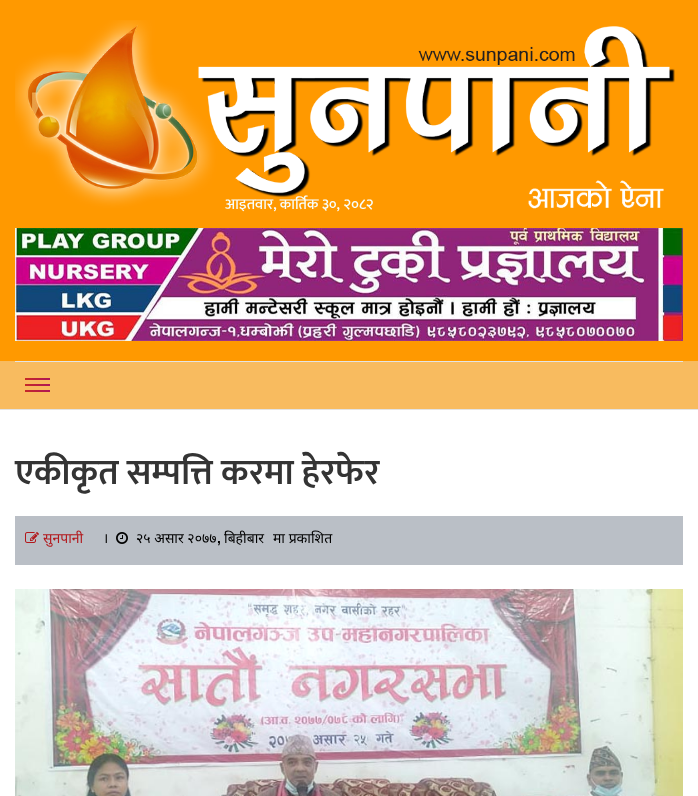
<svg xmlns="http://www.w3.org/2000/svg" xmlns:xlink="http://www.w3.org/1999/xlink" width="698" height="796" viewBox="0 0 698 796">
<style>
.cls-1{font:500 15px Ek Mukta;fill:#f8fefb}
.cls-2{font:600 36px Ek Mukta;fill:#343434}
.cls-3{font:14px Noto Sans;fill:#b2171b}
.cls-4{font:14px Noto Sans;fill:#000000}
.cls-5{font:bold 14px Liberation Sans;fill:#000000}
</style>
<defs>
<linearGradient id="g1" gradientUnits="userSpaceOnUse" x1="25" y1="379" x2="50" y2="379"><stop offset="0" stop-color="#c62827"/><stop offset="1" stop-color="#ae1558"/></linearGradient>
</defs>
<rect width="100%" height="100%" fill="#ffffff"/>
<rect fill="#ff9900" x="0" y="0" width="698" height="361"/>
<image xlink:href="image0.png" x="15" y="20" width="660" height="189"/>
<image xlink:href="image1.png" x="15" y="228" width="668" height="113"/>
<rect fill="#f8bb5f" x="0" y="361" width="698" height="48"/>
<rect fill="#e3e3e3" x="0" y="409" width="698" height="1"/>
<rect fill="#e4e4e4" x="15" y="361" width="668" height="1"/>
<rect fill="url(#g1)" x="25" y="378" width="25" height="2"/>
<image xlink:href="image2.png" x="25" y="384" width="25" height="8"/>
<rect fill="#babfc6" x="15" y="516" width="668" height="49"/>
<image xlink:href="image3.png" x="25" y="532" width="14" height="11"/>
<image xlink:href="image4.png" x="116" y="532" width="12" height="12"/>
<image xlink:href="image5.png" x="15" y="589" width="668" height="207"/>
<text class="cls-1" x="225" y="209">आइतवार, कार्तिक ३०, २०८२</text>
<text class="cls-2" x="15" y="484">एकीकृत सम्पत्ति करमा हेरफेर</text>
<text class="cls-3" x="43" y="543">सुनपानी</text>
<text class="cls-4" x="103" y="543">।</text>
<text class="cls-4" x="136" y="543">२५ असार २०७७</text>
<text class="cls-5" x="217" y="543">,</text>
<text class="cls-4" x="224" y="543">बिहीबार</text>
<text class="cls-4" x="273" y="543">मा प्रकाशित</text>
</svg>
